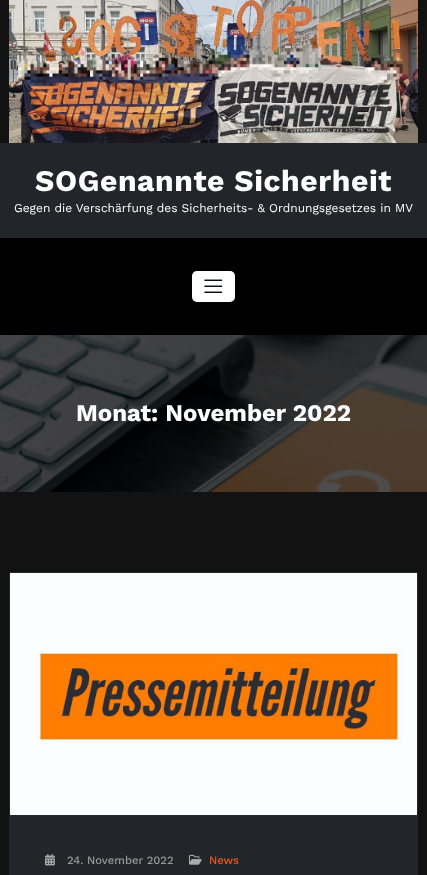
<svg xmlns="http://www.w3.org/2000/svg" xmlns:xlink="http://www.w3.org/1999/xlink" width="427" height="875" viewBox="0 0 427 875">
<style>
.cls-1{font:bold 30px Work Sans;letter-spacing:0.6px;fill:#ffffff}
.cls-2{font:12px Work Sans;fill:#ffffff}
.cls-3{font:bold 24px Work Sans;fill:#ffffff}
.cls-4{font:500 11.25px Work Sans;fill:#999999}
.cls-5{font:500 11.25px Work Sans;fill:#ee591f}
</style>
<rect width="100%" height="100%" fill="#121212"/>
<image xlink:href="image0.png" x="9" y="0" width="409" height="143"/>
<rect fill="#22252a" x="0" y="143" width="427" height="95"/>
<rect fill="#000000" x="0" y="238" width="427" height="97"/>
<rect fill="#ffffff" x="192" y="271" width="43" height="31" rx="5"/>
<rect fill="none" stroke="#ffffff" stroke-opacity="0.1" x="192.5" y="271.5" width="42" height="30" rx="4.5"/>
<image xlink:href="image1.png" x="204" y="279" width="19" height="14"/>
<image xlink:href="image2.png" x="0" y="335" width="427" height="157"/>
<rect fill="#22252a" x="9" y="572" width="409" height="303"/>
<image xlink:href="image3.png" x="10" y="573" width="407" height="242"/>
<image xlink:href="image4.png" x="45" y="854" width="10" height="12"/>
<image xlink:href="image5.png" x="189" y="854" width="13" height="11"/>
<text class="cls-1" x="35" y="191">SOGenannte Sicherheit</text>
<text class="cls-2" x="14" y="212">Gegen die Verschärfung des Sicherheits- &amp; Ordnungsgesetzes in MV</text>
<text class="cls-3" x="76" y="421">Monat: November 2022</text>
<text class="cls-4" x="67" y="864">24. November 2022</text>
<text class="cls-5" x="209" y="864">News</text>
</svg>
